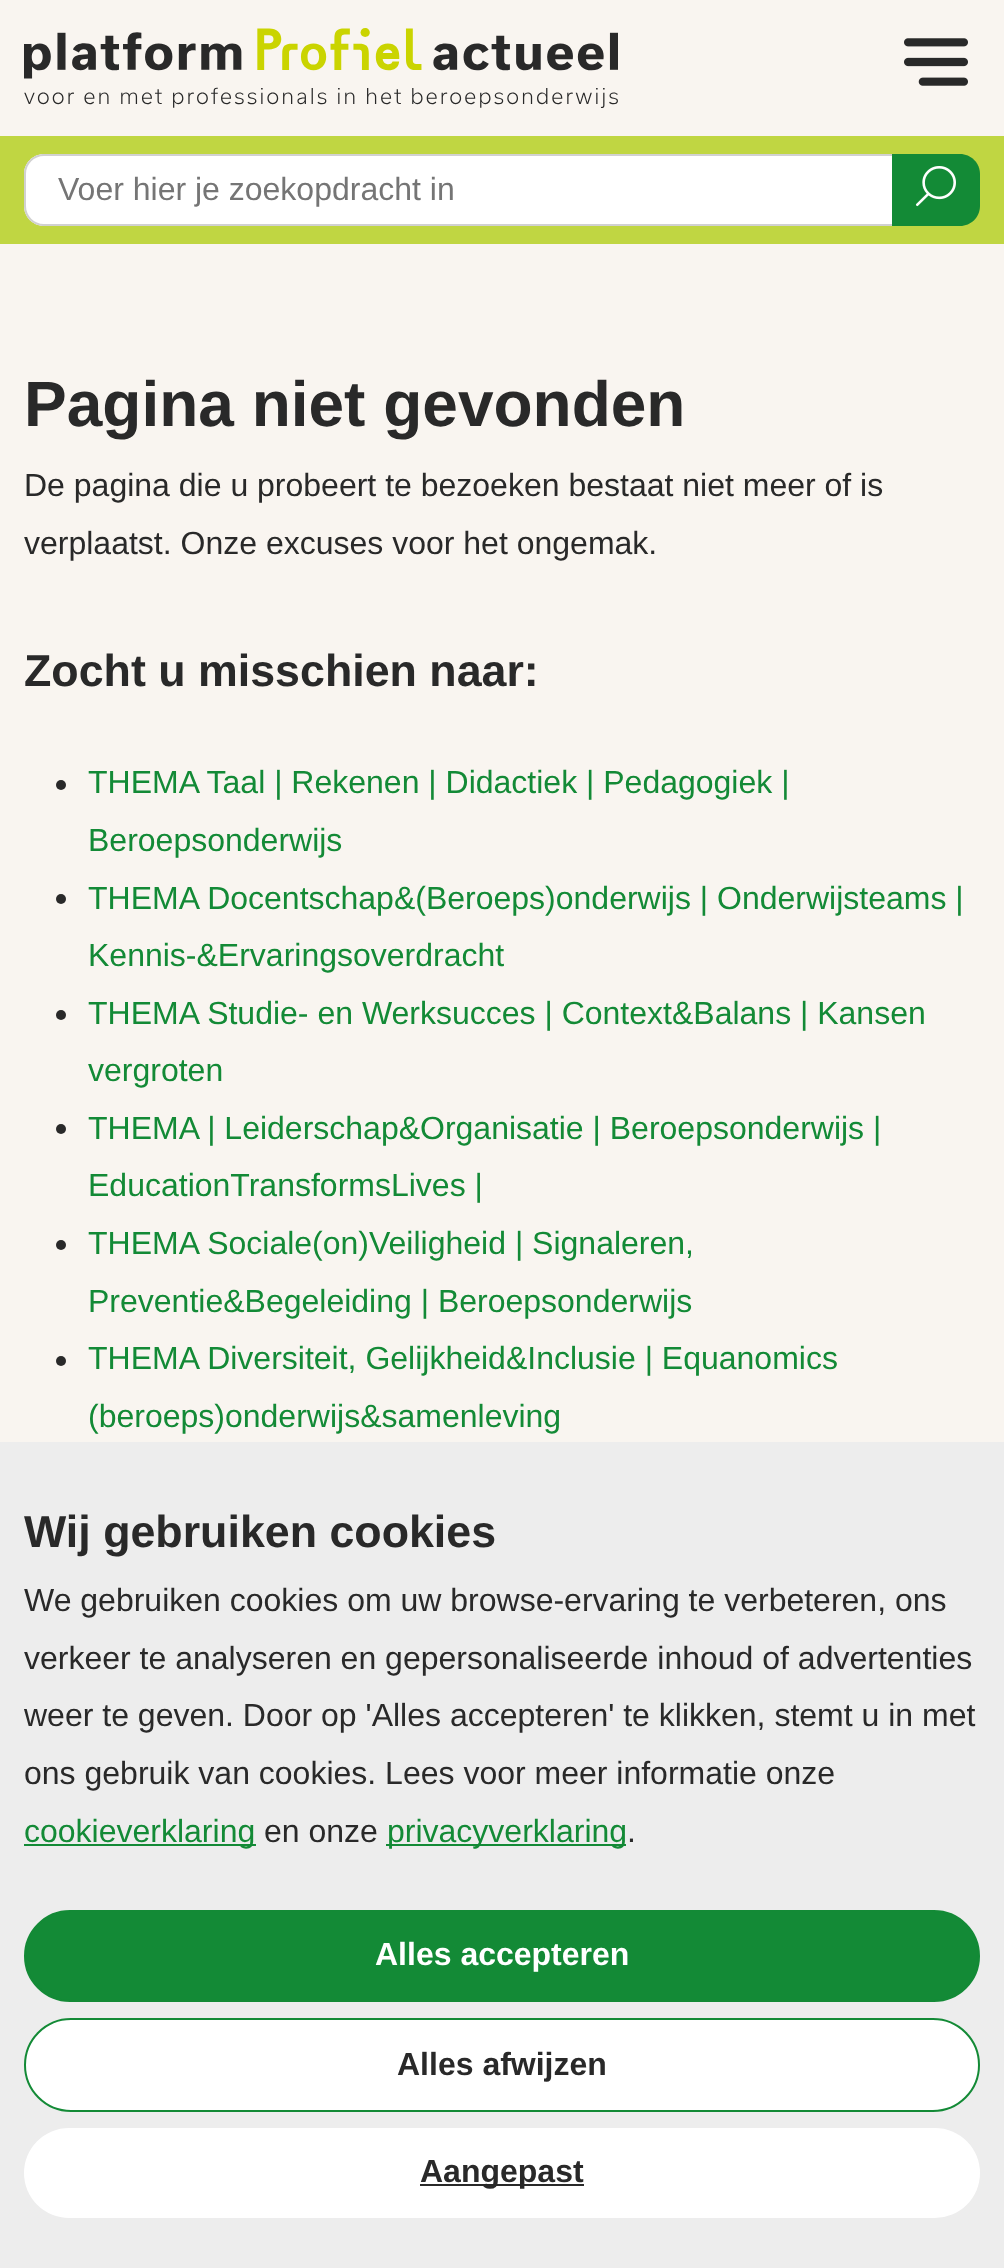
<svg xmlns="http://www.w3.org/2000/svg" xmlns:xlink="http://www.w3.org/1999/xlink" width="1004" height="2268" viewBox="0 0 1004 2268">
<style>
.cls-1{font:32px Liberation Sans;fill:#757575}
.cls-2{font:bold 64px Liberation Sans;fill:#292929}
.cls-3{font:32px Liberation Sans;fill:#292929}
.cls-4{font:bold 44.75px Liberation Sans;fill:#292929}
.cls-5{font:32px Liberation Sans;fill:#138a36}
.cls-6{font:bold 32px Liberation Sans;fill:#ffffff}
.cls-7{font:bold 32px Liberation Sans;fill:#292929}
</style>
<rect width="100%" height="100%" fill="#f9f5f0"/>
<image xlink:href="image0.png" x="24" y="28" width="594" height="80"/>
<image xlink:href="image1.png" x="904" y="38" width="64" height="48"/>
<rect fill="#c0d642" x="0" y="136" width="1004" height="108"/>
<path fill="#ffffff" d="M44 154H892V226H44C33 226 24 217 24 206V174C24 163 33 154 44 154Z"/>
<path fill="#d1d1d1" fill-rule="evenodd" d="M44 154H892V226H44C33 226 24 217 24 206V174C24 163 33 154 44 154ZM44 156H892V224H44C34 224 26 216 26 206V174C26 164 34 156 44 156Z"/>
<path fill="#138a36" d="M892 154H960C971 154 980 163 980 174V206C980 217 971 226 960 226H892Z"/>
<image xlink:href="image2.png" x="915" y="166" width="41" height="41"/>
<circle fill="#292929" cx="61" cy="785" r="5"/>
<circle fill="#292929" cx="61" cy="899" r="5"/>
<circle fill="#292929" cx="61" cy="1015" r="5"/>
<circle fill="#292929" cx="61" cy="1129" r="5"/>
<circle fill="#292929" cx="61" cy="1245" r="5"/>
<circle fill="#292929" cx="61" cy="1361" r="5"/>
<rect fill="#ededed" x="0" y="1442" width="1004" height="826"/>
<rect fill="#138a36" x="24" y="1844" width="232" height="2"/>
<rect fill="#138a36" x="386" y="1844" width="240" height="2"/>
<rect fill="#138a36" stroke="#138a36" stroke-width="2" x="25" y="1911" width="954" height="90" rx="45"/>
<rect fill="#ffffff" stroke="#138a36" stroke-width="2" x="25" y="2019" width="954" height="92" rx="46"/>
<rect fill="#ffffff" x="24" y="2128" width="956" height="90" rx="45"/>
<rect fill="#292929" x="420" y="2184" width="164" height="2"/>
<text class="cls-1" x="58" y="200">Voer hier je zoekopdracht in</text>
<text class="cls-2" x="24" y="426">Pagina niet gevonden</text>
<text class="cls-3"><tspan x="24" y="496">De pagina die u probeert te bezoeken bestaat niet meer of is</tspan><tspan x="24" y="554">verplaatst. Onze excuses voor het ongemak.</tspan></text>
<text class="cls-4" x="24" y="686">Zocht u misschien naar:</text>
<text class="cls-5"><tspan x="88" y="793">THEMA Taal | Rekenen | Didactiek | Pedagogiek |</tspan><tspan x="88" y="851">Beroepsonderwijs</tspan><tspan x="88" y="909">THEMA Docentschap&amp;(Beroeps)onderwijs | Onderwijsteams |</tspan><tspan x="88" y="966">Kennis-&amp;Ervaringsoverdracht</tspan><tspan x="88" y="1024">THEMA Studie- en Werksucces | Context&amp;Balans | Kansen</tspan><tspan x="88" y="1081">vergroten</tspan><tspan x="88" y="1139">THEMA | Leiderschap&amp;Organisatie | Beroepsonderwijs |</tspan><tspan x="88" y="1196">EducationTransformsLives |</tspan><tspan x="88" y="1254">THEMA Sociale(on)Veiligheid | Signaleren,</tspan><tspan x="88" y="1312">Preventie&amp;Begeleiding | Beroepsonderwijs</tspan><tspan x="88" y="1369">THEMA Diversiteit, Gelijkheid&amp;Inclusie | Equanomics</tspan><tspan x="88" y="1427">(beroeps)onderwijs&amp;samenleving</tspan></text>
<text class="cls-4" x="24" y="1547">Wij gebruiken cookies</text>
<text class="cls-3"><tspan x="24" y="1611">We gebruiken cookies om uw browse-ervaring te verbeteren, ons</tspan><tspan x="24" y="1669">verkeer te analyseren en gepersonaliseerde inhoud of advertenties</tspan><tspan x="24" y="1726">weer te geven. Door op 'Alles accepteren' te klikken, stemt u in met</tspan><tspan x="24" y="1784">ons gebruik van cookies. Lees voor meer informatie onze</tspan></text>
<text class="cls-5" x="24" y="1842">cookieverklaring</text>
<text class="cls-3" x="264" y="1842">en onze</text>
<text class="cls-5" x="387" y="1842">privacyverklaring</text>
<text class="cls-3" x="627" y="1842">.</text>
<text class="cls-6" x="375" y="1965">Alles accepteren</text>
<text class="cls-7" x="397" y="2075">Alles afwijzen</text>
<text class="cls-7" x="420" y="2182">Aangepast</text>
</svg>
